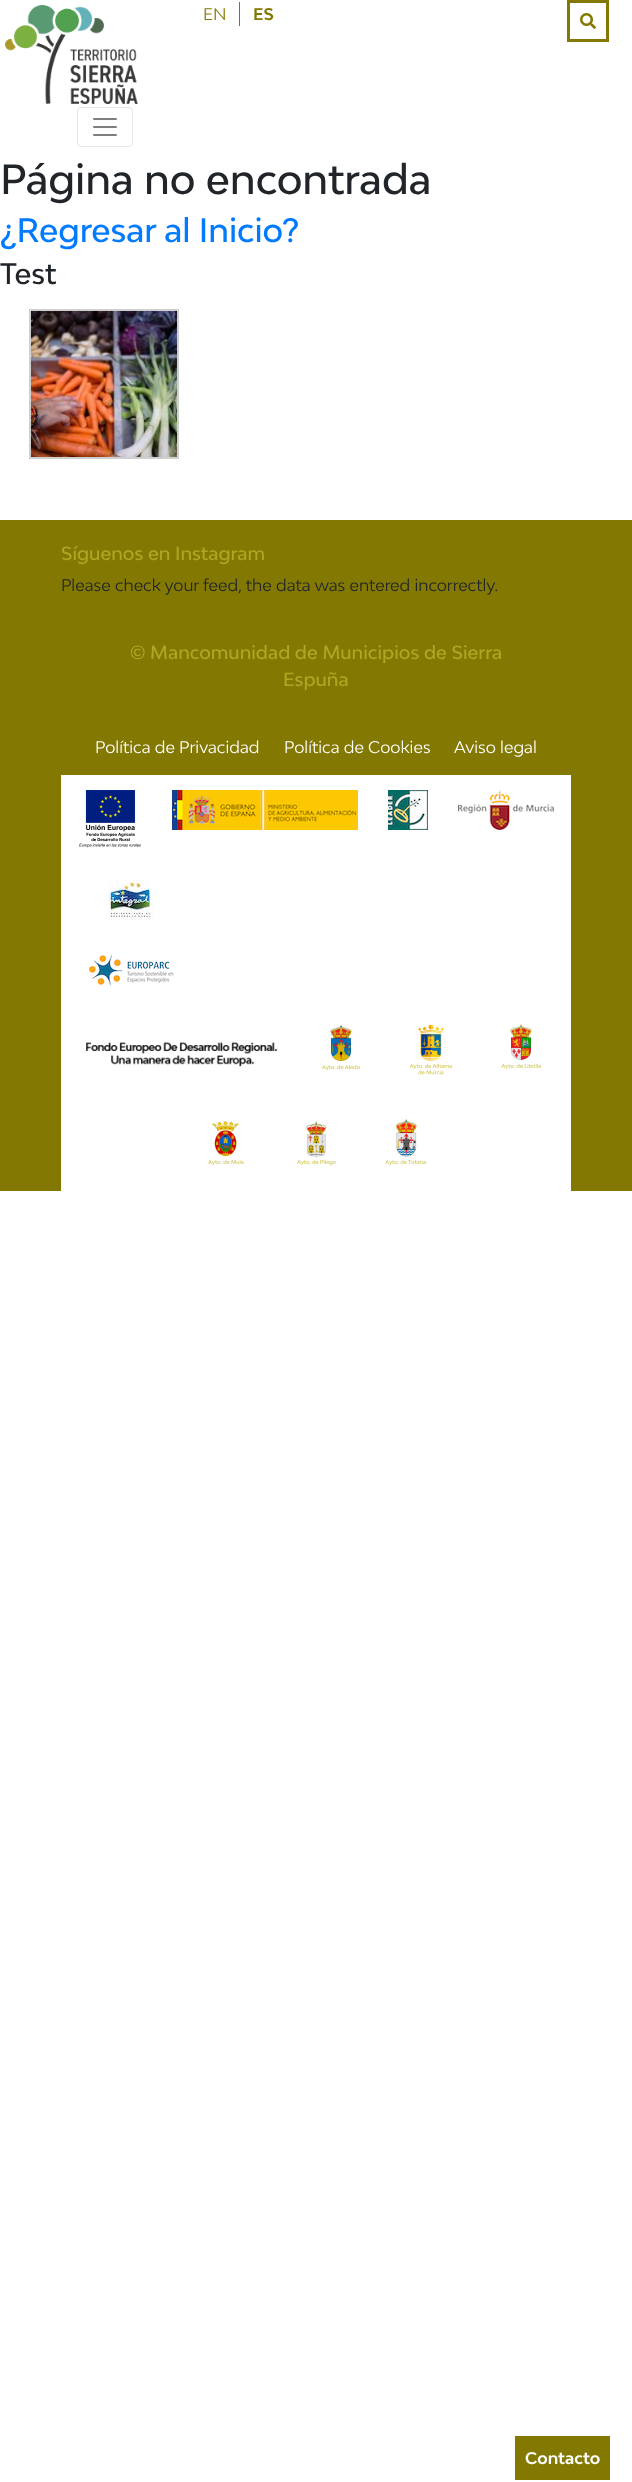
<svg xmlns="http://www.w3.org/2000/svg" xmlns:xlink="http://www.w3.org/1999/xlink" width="632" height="2482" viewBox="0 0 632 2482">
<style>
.cls-1{font:16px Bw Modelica;fill:#837902}
.cls-2{font:bold 16px Bw Modelica;fill:#837902}
.cls-3{font:bold 16px Bw Modelica;fill:#ffffff}
.cls-4{font:500 40px Bw Modelica;fill:#212529}
.cls-5{font:500 32px Bw Modelica;fill:#007bff}
.cls-6{font:500 28px Bw Modelica;fill:#212529}
.cls-7{font:500 18px Bw Modelica;fill:#b1a623}
.cls-8{font:16px Bw Modelica;fill:#212529}
.cls-9{font:16px Bw Modelica;fill:#ffffff}
</style>
<rect width="100%" height="100%" fill="#ffffff"/>
<image xlink:href="image0.png" x="5" y="5" width="133" height="99"/>
<rect fill="#837902" x="239" y="2" width="1" height="24"/>
<rect fill="none" stroke="#837902" stroke-width="3" x="568.5" y="1.5" width="39" height="39"/>
<image xlink:href="image1.png" x="580" y="13" width="16" height="16"/>
<rect fill="none" stroke="#e6e6e6" x="77.5" y="107.5" width="55" height="39" rx="3.5"/>
<image xlink:href="image2.png" x="93" y="118" width="24" height="18"/>
<rect fill="#837902" x="515" y="2436" width="95" height="44"/>
<rect fill="none" stroke="#cfcfcf" stroke-width="2" x="30" y="310" width="148" height="148"/>
<image xlink:href="image3.png" x="31" y="311" width="146" height="146"/>
<rect fill="#837902" x="0" y="520" width="632" height="671"/>
<rect fill="#ffffff" x="61" y="775" width="510" height="416"/>
<image xlink:href="image4.png" x="79" y="790" width="62" height="58"/>
<image xlink:href="image5.png" x="172" y="790" width="186" height="40"/>
<image xlink:href="image6.png" x="388" y="790" width="40" height="40"/>
<image xlink:href="image7.png" x="458" y="790" width="96" height="40"/>
<image xlink:href="image8.png" x="109" y="880" width="46" height="40"/>
<image xlink:href="image9.png" x="88" y="955" width="86" height="31"/>
<image xlink:href="image10.png" x="86" y="1042" width="192" height="25"/>
<image xlink:href="image11.png" x="322" y="1024" width="38" height="47"/>
<image xlink:href="image12.png" x="409" y="1024" width="43" height="51"/>
<image xlink:href="image13.png" x="501" y="1024" width="40" height="46"/>
<image xlink:href="image14.png" x="208" y="1120" width="36" height="46"/>
<image xlink:href="image15.png" x="297" y="1121" width="39" height="45"/>
<image xlink:href="image16.png" x="385" y="1118" width="41" height="48"/>
<text class="cls-1" x="203" y="20">EN</text>
<text class="cls-2" x="253" y="20">ES</text>
<text class="cls-3" x="525" y="2464">Contacto</text>
<text class="cls-4" x="0" y="194">Página no encontrada</text>
<text class="cls-5" x="0" y="242">¿Regresar al Inicio?</text>
<text class="cls-6" x="0" y="284">Test</text>
<text class="cls-7" x="61" y="560">Síguenos en Instagram</text>
<text class="cls-8" x="61" y="591">Please check your feed, the data was entered incorrectly.</text>
<text class="cls-7" x="130" y="659">© Mancomunidad de Municipios de Sierra</text>
<text class="cls-7" x="283" y="686">Espuña</text>
<text class="cls-9" x="95" y="753">Política de Privacidad</text>
<text class="cls-9" x="284" y="753">Política de Cookies</text>
<text class="cls-9" x="454" y="753">Aviso legal</text>
</svg>
